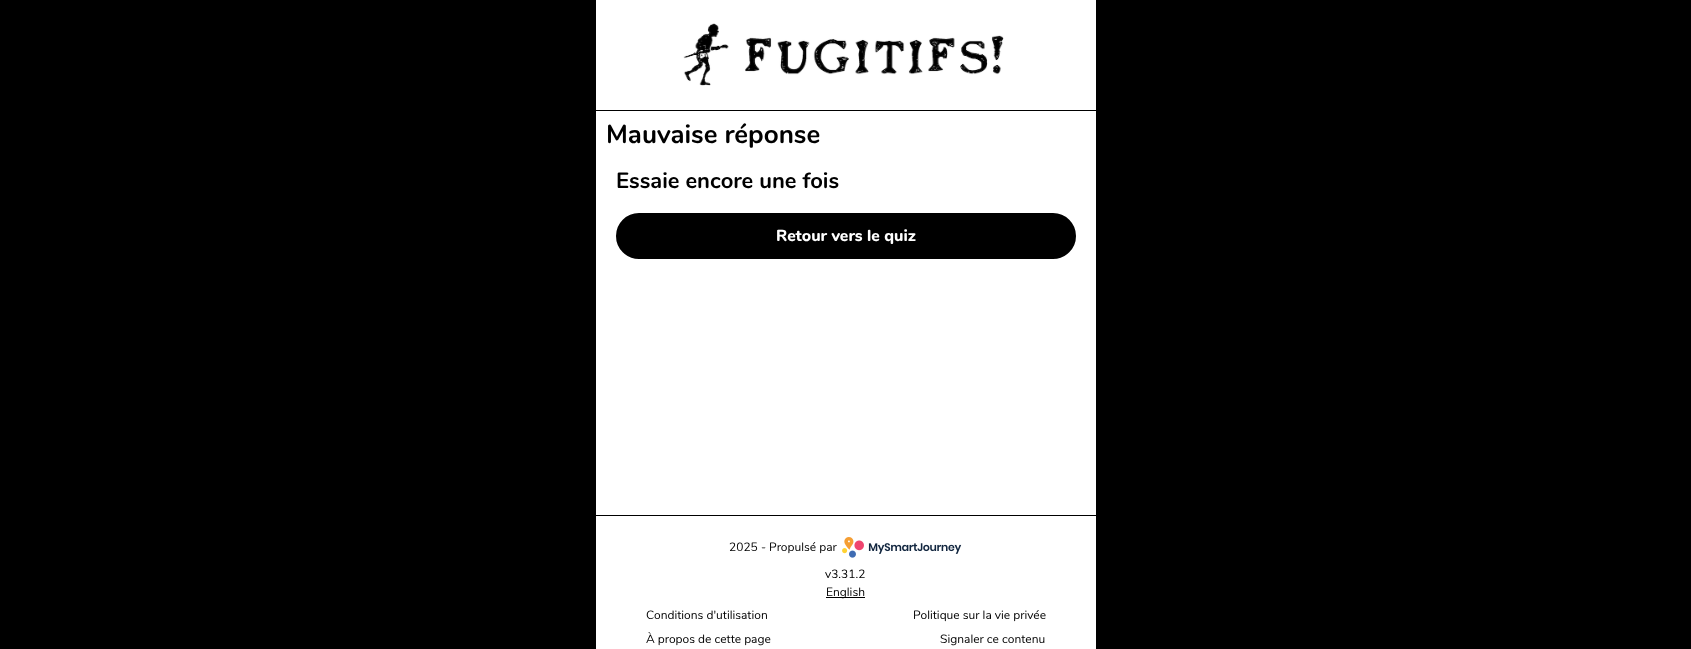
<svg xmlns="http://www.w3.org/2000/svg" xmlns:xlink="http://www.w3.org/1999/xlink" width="1691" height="649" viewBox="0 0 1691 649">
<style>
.cls-1{font:bold 26px Nunito;fill:#000000}
.cls-2{font:bold 22px Nunito;fill:#000000}
.cls-3{font:800 16px Nunito;fill:#ffffff}
.cls-4{font:12px Nunito;fill:#000000}
</style>
<rect width="100%" height="100%" fill="#000000"/>
<rect fill="#ffffff" x="596" y="0" width="500" height="649"/>
<rect fill="#000000" x="596" y="110" width="500" height="1"/>
<image xlink:href="image0.png" x="683" y="23" width="321" height="63"/>
<rect fill="#000000" stroke="#000000" stroke-width="2" x="617" y="214" width="458" height="44" rx="22"/>
<rect fill="#000000" x="596" y="515" width="500" height="1"/>
<image xlink:href="image1.png" x="842" y="537" width="120" height="21"/>
<rect fill="#000000" x="826" y="597" width="39" height="1"/>
<text class="cls-1" x="606" y="143">Mauvaise réponse</text>
<text class="cls-2" x="616" y="188">Essaie encore une fois</text>
<text class="cls-3" x="776" y="241">Retour vers le quiz</text>
<text class="cls-4" x="729" y="551">2025 - Propulsé par</text>
<text class="cls-4" x="825" y="578">v3.31.2</text>
<text class="cls-4" x="826" y="596">English</text>
<text class="cls-4" x="646" y="619">Conditions d'utilisation</text>
<text class="cls-4" x="913" y="619">Politique sur la vie privée</text>
<text class="cls-4" x="646" y="643">À propos de cette page</text>
<text class="cls-4" x="940" y="643">Signaler ce contenu</text>
</svg>
